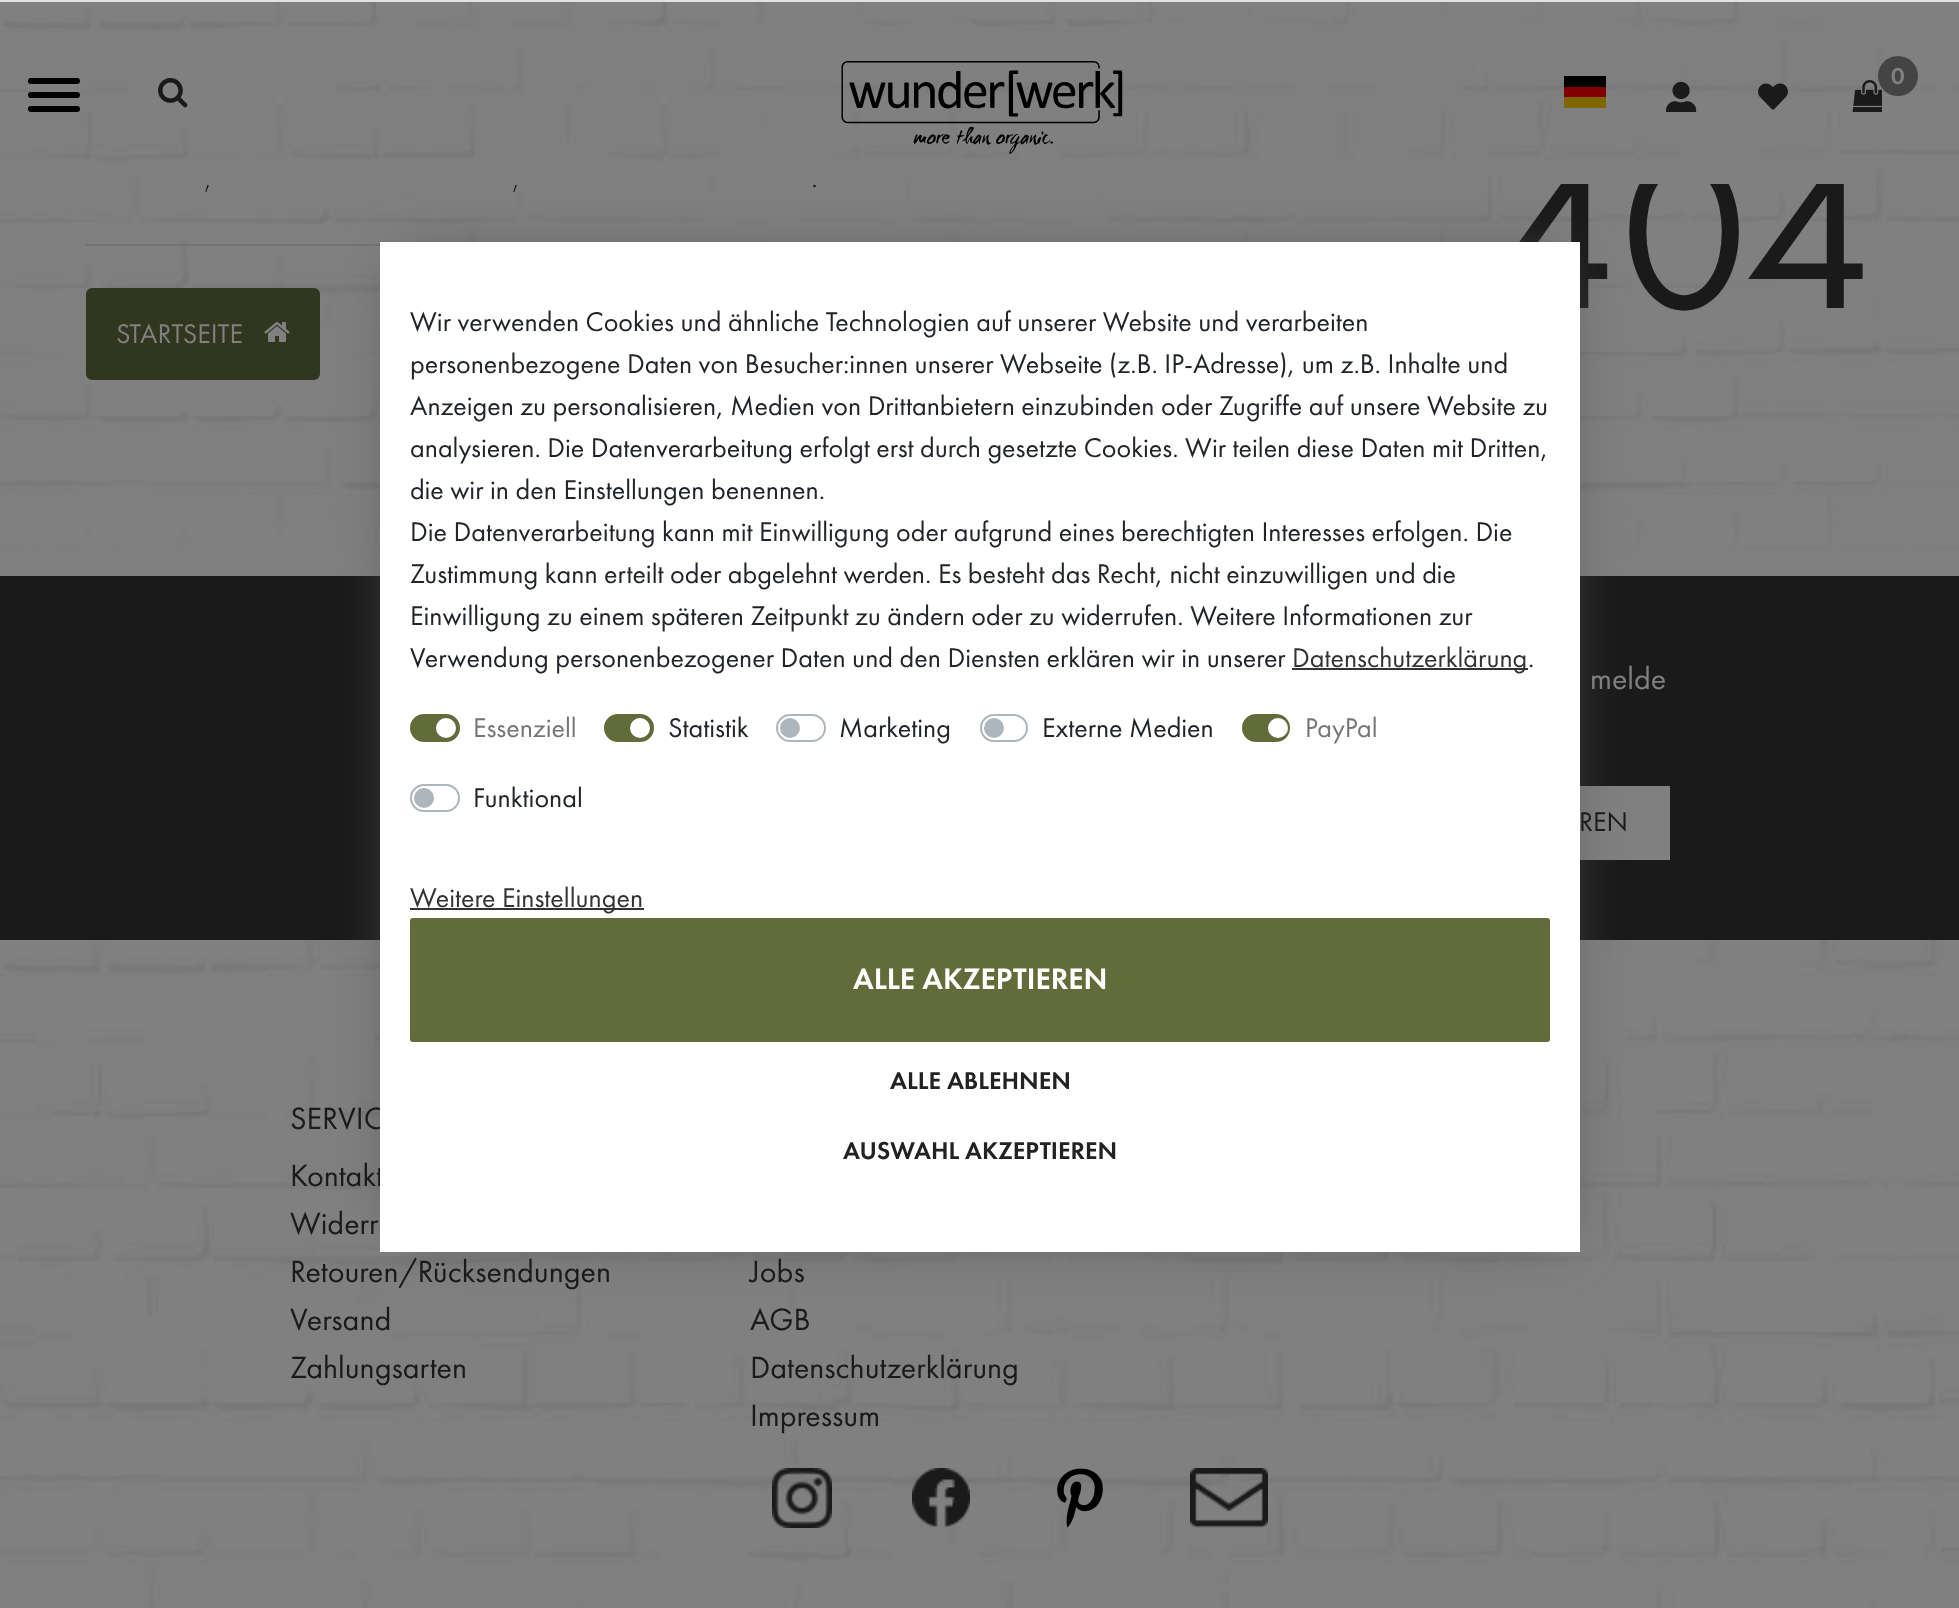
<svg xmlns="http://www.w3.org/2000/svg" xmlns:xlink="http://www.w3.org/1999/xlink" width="1959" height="1608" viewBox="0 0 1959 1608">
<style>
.cls-1{font:500 24px Futura PT;fill:#808080}
.cls-2{font:300 35px Futura PT;fill:#1a1a1a}
.cls-3{font:28px Futura PT;fill:#808080}
.cls-4{font:230px Futura PT;fill:#1a1a1a}
.cls-5{font:32px Futura PT;fill:#1a1a1a}
.cls-6{font:500 25.25px Futura PT;fill:#222222}
.cls-7{font:500 30.75px Futura PT;fill:#ffffff}
.cls-8{font:28px Futura PT;fill:#212529}
.cls-9{font:28px Futura PT;fill:#767676}
.cls-10{font:28px Futura PT;fill:#333333}
.cls-11{font:32px Futura PT;fill:#808080}
.cls-12{font:28px Futura PT;fill:#1a1a1a}
</style>
<rect width="100%" height="100%" fill="#ffffff"/>
<image xlink:href="image0.png" x="0" y="2" width="1959" height="574"/>
<image xlink:href="image5.png" x="1852" y="80" width="30" height="32"/>
<circle fill="#444444" cx="1898" cy="76" r="20"/>
<rect fill="#000000" x="28" y="92" width="52" height="6" rx="3"/>
<rect fill="#000000" x="28" y="78" width="52" height="6" rx="3"/>
<rect fill="#000000" x="28" y="106" width="52" height="6" rx="3"/>
<rect fill="#737373" x="86" y="244" width="294" height="2"/>
<rect fill="#31361e" stroke="#31361e" stroke-width="2" x="87" y="289" width="232" height="90" rx="5"/>
<image xlink:href="image7.png" x="264" y="322" width="26" height="20"/>
<image xlink:href="image8.png" x="0" y="940" width="1959" height="668"/>
<rect fill="#dee2e6" x="0" y="0" width="1959" height="2"/>
<image xlink:href="image9.png" x="772" y="1468" width="60" height="60"/>
<image xlink:href="image10.png" x="912" y="1468" width="58" height="60"/>
<image xlink:href="image11.png" x="1057" y="1468" width="46" height="60"/>
<image xlink:href="image12.png" x="1190" y="1468" width="78" height="60"/>
<rect fill="#808080" filter="blur(20px)" x="0" y="536" width="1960" height="364"/>
<rect fill="#1a1a1a" x="0" y="576" width="1959" height="364"/>
<rect fill="#808080" x="1580" y="786" width="90" height="74"/>
<text class="cls-1" x="1891" y="84">0</text>
<text class="cls-2" x="204" y="187">,</text>
<text class="cls-2" x="512" y="187">,</text>
<text class="cls-2" x="811" y="187">.</text>
<text class="cls-3" x="116" y="343">STARTSEITE</text>
<text class="cls-4" x="1488" y="308">404</text>
<image xlink:href="image1.png" x="89" y="67" width="1755" height="117"/>
<image xlink:href="image6.png" x="158" y="78" width="30" height="30"/>
<image xlink:href="image4.png" x="1758" y="83" width="30" height="27"/>
<image xlink:href="image3.png" x="1666" y="81" width="31" height="31"/>
<rect fill="#800000" x="1564" y="87" width="42" height="10"/>
<rect fill="#000000" x="1564" y="76" width="42" height="11"/>
<rect fill="#806600" x="1564" y="97" width="42" height="11"/>
<image xlink:href="image2.png" x="841" y="61" width="282" height="93"/>
<rect fill="#555555" filter="blur(30px)" x="400" y="262" width="1160" height="970"/>
<text class="cls-5"><tspan x="290" y="1129">SERVIC</tspan><tspan x="290" y="1186">Kontakt</tspan></text>
<rect fill="#ffffff" x="380" y="242" width="1200" height="1010"/>
<text class="cls-6" x="843" y="1159">AUSWAHL AKZEPTIEREN</text>
<text class="cls-6" x="890" y="1089">ALLE ABLEHNEN</text>
<rect fill="#626c3b" stroke="#626c3b" stroke-width="2" x="411" y="919" width="1138" height="122" rx="2"/>
<text class="cls-7" x="853" y="989">ALLE AKZEPTIEREN</text>
<rect fill="none" stroke="#adb5bd" stroke-width="2" x="411" y="785" width="48" height="26" rx="13"/>
<circle fill="#adb5bd" cx="424" cy="798" r="10"/>
<text class="cls-8" x="473" y="807">Funktional</text>
<rect fill="#626c3b" stroke="#626c3b" stroke-width="2" x="1243" y="715" width="46" height="26" rx="13"/>
<circle fill="#ffffff" cx="1278" cy="728" r="10"/>
<text class="cls-9" x="1305" y="737">PayPal</text>
<rect fill="none" stroke="#adb5bd" stroke-width="2" x="981" y="715" width="46" height="26" rx="13"/>
<circle fill="#adb5bd" cx="994" cy="728" r="10"/>
<text class="cls-8" x="1042" y="737">Externe Medien</text>
<rect fill="none" stroke="#adb5bd" stroke-width="2" x="777" y="715" width="48" height="26" rx="13"/>
<circle fill="#adb5bd" cx="790" cy="728" r="10"/>
<text class="cls-8" x="839" y="737">Marketing</text>
<rect fill="#626c3b" stroke="#626c3b" stroke-width="2" x="605" y="715" width="48" height="26" rx="13"/>
<circle fill="#ffffff" cx="640" cy="728" r="10"/>
<text class="cls-8" x="668" y="737">Statistik</text>
<rect fill="#626c3b" stroke="#626c3b" stroke-width="2" x="411" y="715" width="48" height="26" rx="13"/>
<circle fill="#ffffff" cx="446" cy="728" r="10"/>
<text class="cls-9" x="473" y="737">Essenziell</text>
<text class="cls-8" x="1528" y="667">.</text>
<rect fill="#333333" x="1292" y="668" width="236" height="2"/>
<text class="cls-10" x="1292" y="667">Datenschutzerklärung</text>
<text class="cls-8" x="410" y="667">Verwendung personenbezogener Daten und den Diensten erklären wir in unserer</text>
<text class="cls-8" x="410" y="625">Einwilligung zu einem späteren Zeitpunkt zu ändern oder zu widerrufen. Weitere Informationen zur</text>
<text class="cls-8" x="410" y="583">Zustimmung kann erteilt oder abgelehnt werden. Es besteht das Recht, nicht einzuwilligen und die</text>
<text class="cls-8" x="410" y="541">Die Datenverarbeitung kann mit Einwilligung oder aufgrund eines berechtigten Interesses erfolgen. Die</text>
<text class="cls-8" x="410" y="499">die wir in den Einstellungen benennen.</text>
<text class="cls-8" x="410" y="457">analysieren. Die Datenverarbeitung erfolgt erst durch gesetzte Cookies. Wir teilen diese Daten mit Dritten,</text>
<text class="cls-8" x="410" y="415">Anzeigen zu personalisieren, Medien von Drittanbietern einzubinden oder Zugriffe auf unsere Website zu</text>
<text class="cls-8" x="410" y="373">personenbezogene Daten von Besucher:innen unserer Webseite (z.B. IP-Adresse), um z.B. Inhalte und</text>
<text class="cls-8" x="410" y="331">Wir verwenden Cookies und ähnliche Technologien auf unserer Website und verarbeiten</text>
<rect fill="#333333" x="410" y="908" width="234" height="2"/>
<text class="cls-10" x="410" y="907">Weitere Einstellungen</text>
<text class="cls-5"><tspan x="290" y="1234">Widerr</tspan><tspan x="290" y="1282">Retouren/Rücksendungen</tspan><tspan x="290" y="1330">Versand</tspan><tspan x="290" y="1378">Zahlungsarten</tspan></text>
<text class="cls-5"><tspan x="750" y="1282">Jobs</tspan><tspan x="750" y="1330">AGB</tspan><tspan x="750" y="1378">Datenschutzerklärung</tspan><tspan x="750" y="1426">Impressum</tspan></text>
<text class="cls-11" x="1590" y="689">melde</text>
<text class="cls-12" x="1579" y="831">REN</text>
</svg>
